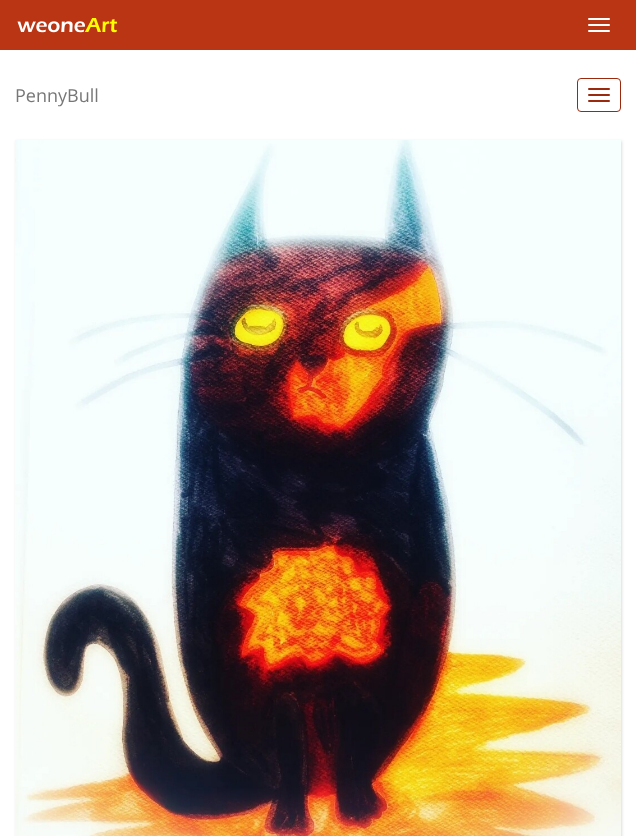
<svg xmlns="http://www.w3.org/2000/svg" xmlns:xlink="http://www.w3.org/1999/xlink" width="636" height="836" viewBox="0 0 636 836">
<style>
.cls-1{font:18px Open Sans;fill:#777777}
</style>
<rect width="100%" height="100%" fill="#ffffff"/>
<rect fill="#b93513" x="0" y="0" width="636" height="50"/>
<image xlink:href="image0.png" x="17" y="18" width="100" height="15"/>
<rect fill="#ffffff" x="588" y="18" width="22" height="2" rx="1"/>
<rect fill="#ffffff" x="588" y="24" width="22" height="2" rx="1"/>
<rect fill="#ffffff" x="588" y="30" width="22" height="2" rx="1"/>
<rect fill="none" stroke="#9a290e" x="577.5" y="78.5" width="43" height="33" rx="3.5"/>
<rect fill="#9a290e" x="588" y="88" width="22" height="2" rx="1"/>
<rect fill="#9a290e" x="588" y="94" width="22" height="2" rx="1"/>
<rect fill="#9a290e" x="588" y="100" width="22" height="2" rx="1"/>
<rect fill="#dddddd" filter="blur(1.5px)" x="16" y="141" width="606" height="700"/>
<image xlink:href="image1.png" x="15" y="140" width="606" height="696"/>
<text class="cls-1" x="15" y="102">PennyBull</text>
</svg>
